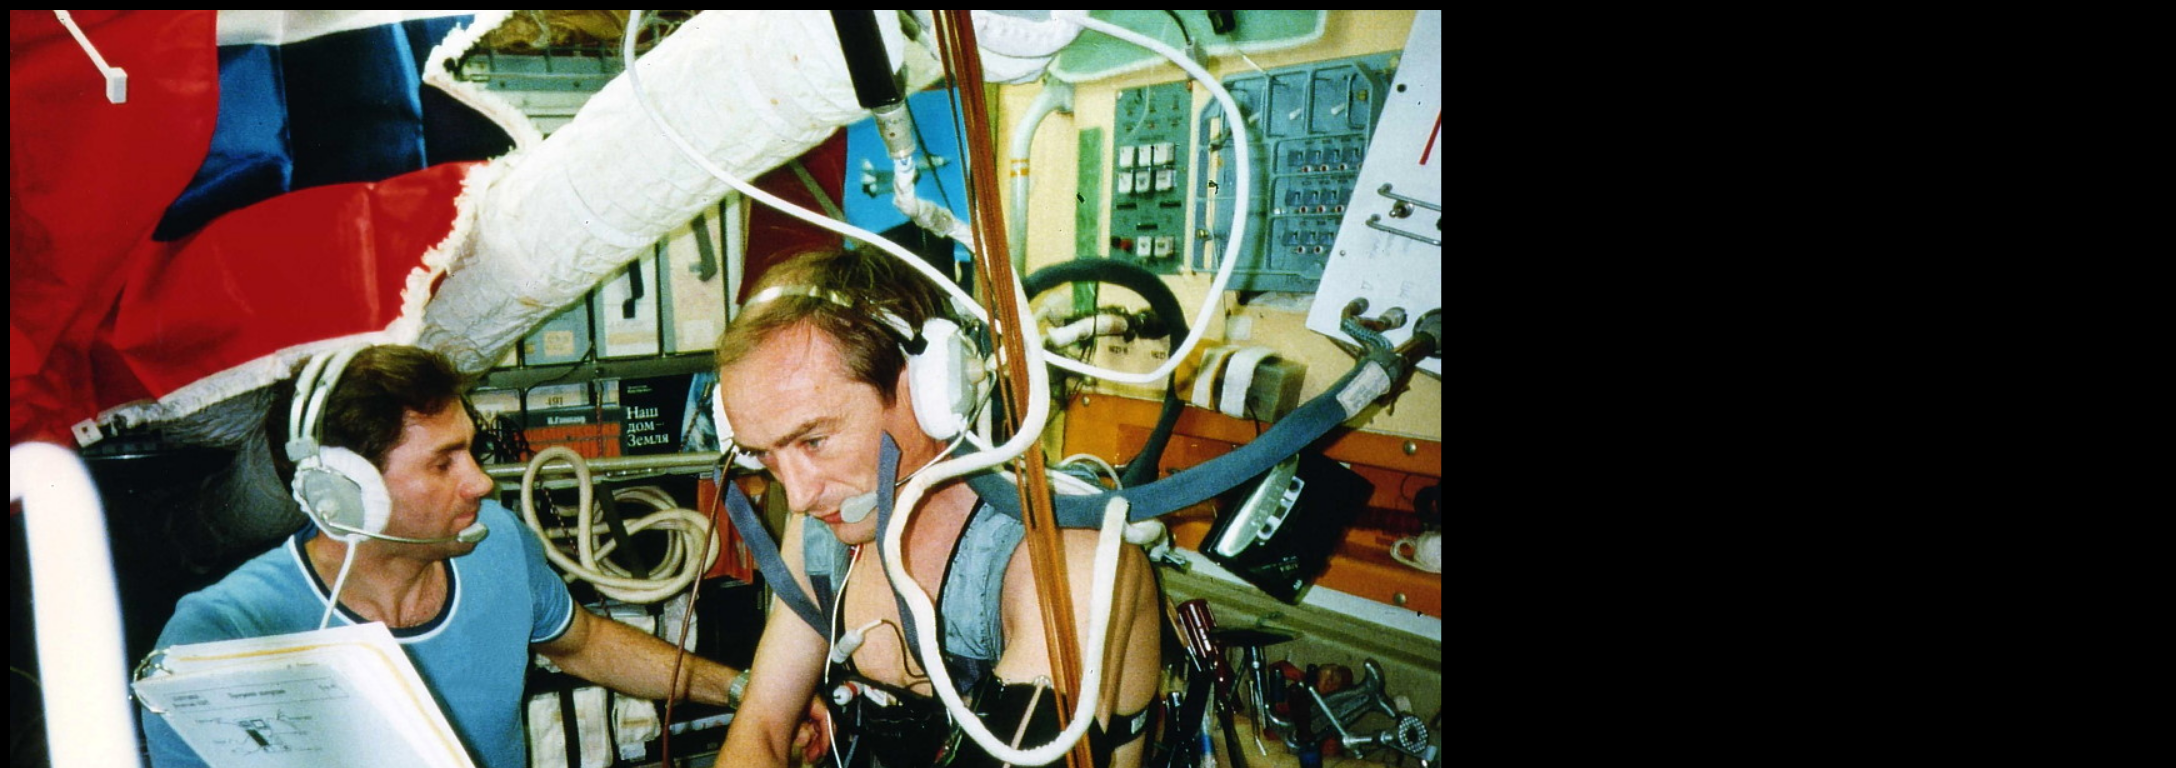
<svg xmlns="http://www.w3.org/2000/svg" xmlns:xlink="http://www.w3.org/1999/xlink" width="2176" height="768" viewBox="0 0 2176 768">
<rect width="100%" height="100%" fill="#000000"/>
<image xlink:href="image0.png" x="10" y="10" width="1432" height="758"/>
</svg>
